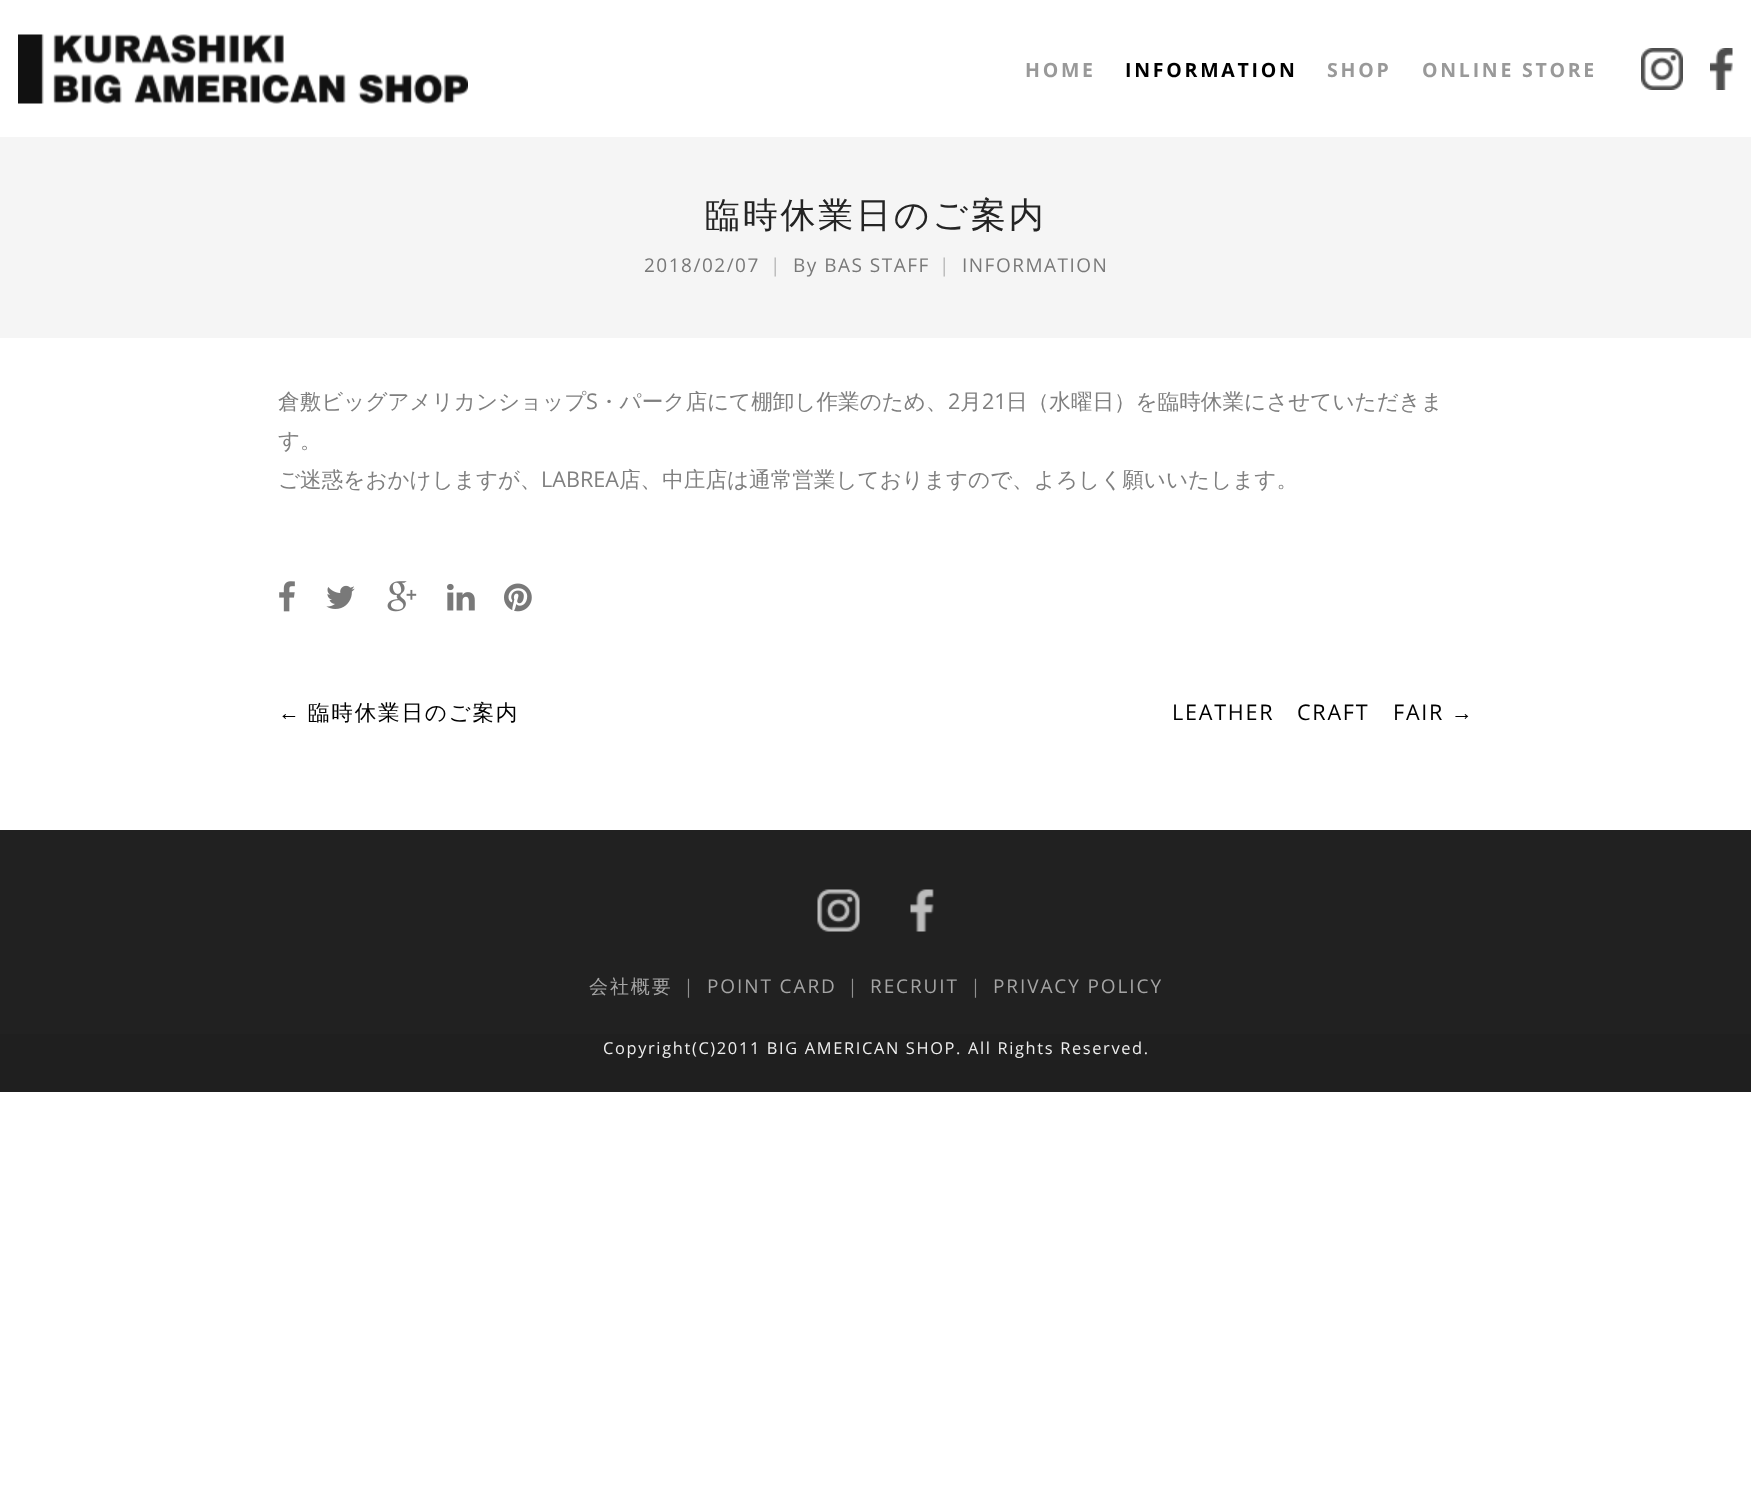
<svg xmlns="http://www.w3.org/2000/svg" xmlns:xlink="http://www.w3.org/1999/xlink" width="1751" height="1500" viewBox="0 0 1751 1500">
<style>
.cls-1{font:bold 19.5px Open Sans;letter-spacing:2.75px;fill:#999999}
.cls-2{font:bold 19.5px Open Sans;letter-spacing:2.75px;fill:#000000}
.cls-3{font:500 35px WenQuanYi Zen Hei;letter-spacing:2.75px;fill:#242424}
.cls-4{font:19px Open Sans;letter-spacing:1.5px;fill:#787878}
.cls-5{font:19px Open Sans;letter-spacing:1.5px;fill:#b6b6b6}
.cls-6{font:500 21.6px WenQuanYi Zen Hei;fill:#7f7f7f}
.cls-7{font:21.6px Open Sans;fill:#7f7f7f}
.cls-8{font:21.6px Liberation Sans;letter-spacing:1.75px;fill:#000000}
.cls-9{font:500 21.6px WenQuanYi Zen Hei;letter-spacing:1.75px;fill:#000000}
.cls-10{font:21.6px Open Sans;letter-spacing:1.75px;fill:#000000}
.cls-11{font:500 19px WenQuanYi Zen Hei;letter-spacing:1.9px;fill:#a5a5a5}
.cls-12{font:500 19px WenQuanYi Zen Hei;letter-spacing:1.9px;fill:#909090}
.cls-13{font:19px Open Sans;letter-spacing:1.9px;fill:#a5a5a5}
.cls-14{font:16.4px Open Sans;letter-spacing:1.65px;fill:#eeeeee}
</style>
<rect width="100%" height="100%" fill="#ffffff"/>
<image xlink:href="image0.png" x="18" y="34" width="450" height="70"/>
<image xlink:href="image1.png" x="1641" y="48" width="42" height="42"/>
<image xlink:href="image2.png" x="1710" y="48" width="23" height="42"/>
<rect fill="#f5f5f5" x="0" y="137" width="1751" height="201"/>
<image xlink:href="image3.png" x="279" y="581" width="16" height="31"/>
<image xlink:href="image4.png" x="326" y="585" width="29" height="24"/>
<image xlink:href="image5.png" x="387" y="581" width="30" height="31"/>
<image xlink:href="image6.png" x="447" y="583" width="28" height="28"/>
<image xlink:href="image7.png" x="504" y="583" width="28" height="29"/>
<rect fill="#212121" x="0" y="830" width="1751" height="204"/>
<image xlink:href="image8.png" x="817" y="889" width="43" height="43"/>
<image xlink:href="image9.png" x="910" y="889" width="24" height="43"/>
<rect fill="#1f1f1f" x="0" y="1034" width="1751" height="58"/>
<text class="cls-1" x="1025" y="77">HOME</text>
<text class="cls-2" x="1125" y="77">INFORMATION</text>
<text class="cls-1" x="1327" y="77">SHOP</text>
<text class="cls-1" x="1422" y="77">ONLINE STORE</text>
<text class="cls-3" x="705" y="227">臨時休業日のご案内</text>
<text class="cls-4" x="644" y="272">2018/02/07</text>
<text class="cls-5" x="770" y="272">|</text>
<text class="cls-4" x="793" y="272">By BAS STAFF</text>
<text class="cls-5" x="939" y="272">|</text>
<text class="cls-4" x="962" y="272">INFORMATION</text>
<text class="cls-6" x="278" y="409">倉敷ビッグアメリカンショップ</text>
<text class="cls-7" x="586" y="409">S</text>
<text class="cls-6" x="598" y="409">・パーク店にて棚卸し作業のため、</text>
<text class="cls-7" x="948" y="409">2</text>
<text class="cls-6" x="960" y="409">月</text>
<text class="cls-7" x="982" y="409">21</text>
<text class="cls-6" x="1006" y="409">日（水曜日）を臨時休業にさせていただきま</text>
<text class="cls-6"><tspan x="278" y="448">す。</tspan><tspan x="278" y="487">ご迷惑をおかけしますが、</tspan></text>
<text class="cls-7" x="541" y="487">LABREA</text>
<text class="cls-6" x="619" y="487">店、中庄店は通常営業しておりますので、よろしく願いいたします。</text>
<text class="cls-8" x="278" y="720">←</text>
<text class="cls-9" x="308" y="720">臨時休業日のご案内</text>
<text class="cls-10" x="1172" y="720">LEATHER</text>
<text class="cls-10" x="1297" y="720">CRAFT</text>
<text class="cls-10" x="1393" y="720">FAIR</text>
<text class="cls-8" x="1451" y="720">→</text>
<text class="cls-11" x="589" y="993">会社概要</text>
<text class="cls-12" x="679" y="993">｜</text>
<text class="cls-13" x="707" y="993">POINT CARD</text>
<text class="cls-12" x="843" y="993">｜</text>
<text class="cls-13" x="870" y="993">RECRUIT</text>
<text class="cls-12" x="966" y="993">｜</text>
<text class="cls-13" x="993" y="993">PRIVACY POLICY</text>
<text class="cls-14" x="603" y="1054">Copyright(C)2011 BIG AMERICAN SHOP. All Rights Reserved.</text>
</svg>
